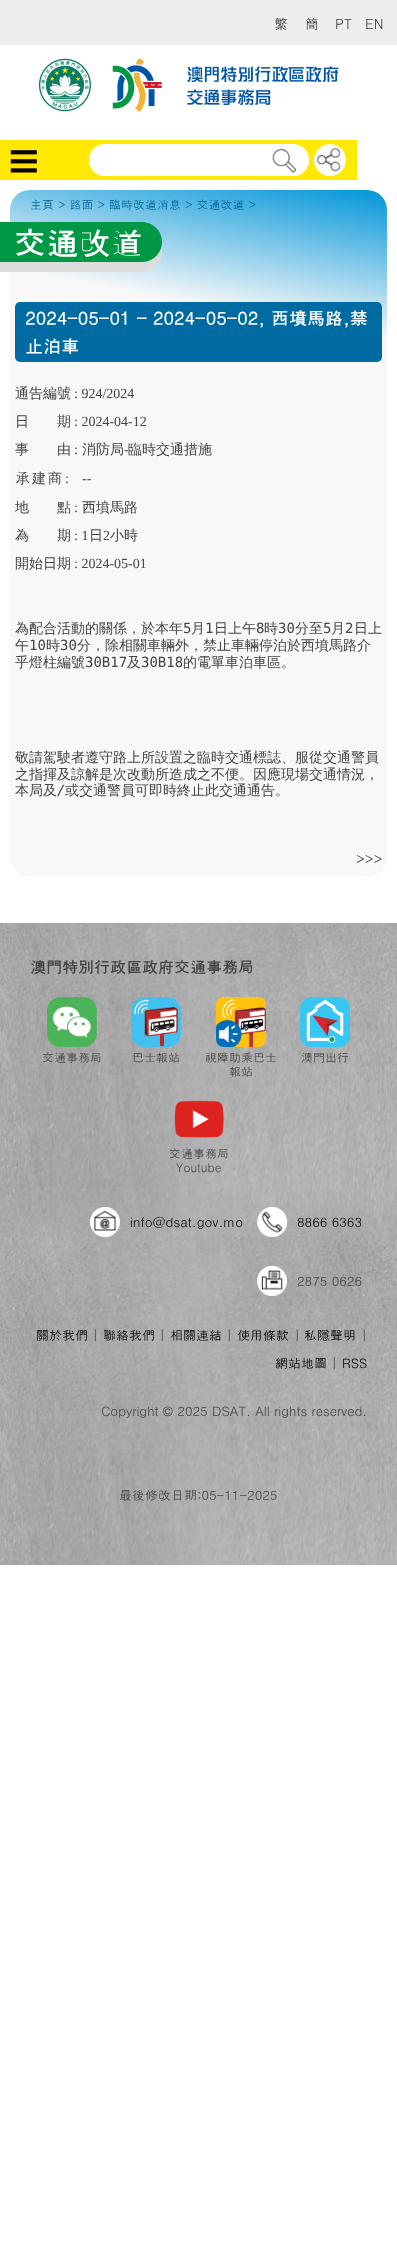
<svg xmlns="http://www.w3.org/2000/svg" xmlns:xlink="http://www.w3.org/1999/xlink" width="397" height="2248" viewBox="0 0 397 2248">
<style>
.cls-1{font:14px Dotum;fill:#444444}
.cls-2{font:12px Dotum;fill:#006699}
.cls-3{font:bold 32px Dotum;fill:#ffffff}
.cls-4{font:bold 18px Dotum;fill:#ffffff}
.cls-5{font:500 14px WenQuanYi Zen Hei;fill:#444444}
.cls-6{font:14px Liberation Serif;fill:#444444}
.cls-7{font:14px DejaVu Sans Mono;fill:#444444}
.cls-8{font:italic 14px DejaVu Sans Mono;fill:#444444}
.cls-9{font:bold 16px Dotum;fill:#444444}
.cls-10{font:12px Dotum;fill:#444444}
.cls-11{font:13px Dotum;fill:#000000}
.cls-12{font:13px Dotum;fill:#444444}
</style>
<defs>
<linearGradient id="g1" gradientUnits="userSpaceOnUse" x1="270" y1="167" x2="127" y2="900"><stop offset="0" stop-color="#0095d9"/><stop offset="0.2" stop-color="#f8f8f8"/></linearGradient>
</defs>
<rect width="100%" height="100%" fill="#ffffff"/>
<rect fill="#eeeeee" x="0" y="0" width="397" height="45"/>
<image xlink:href="image0.png" x="39" y="58" width="300" height="54"/>
<rect fill="#ffe902" x="0" y="140" width="357" height="40"/>
<image xlink:href="image1.png" x="89" y="144" width="220" height="32"/>
<image xlink:href="image2.png" x="314" y="144" width="32" height="32"/>
<image xlink:href="image3.png" x="10" y="150" width="27" height="23"/>
<rect fill="url(#g1)" x="10" y="190" width="377" height="687" rx="20"/>
<path fill="#dddddd" d="M-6 262V272H142C153 272 162 263 162 252L161 247C159 256 151 262 142 262Z"/>
<path fill="#009845" d="M-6 222H142C153 222 162 231 162 242C162 253 153 262 142 262H-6Z"/>
<rect fill="#006ba3" x="15" y="302" width="367" height="60" rx="5"/>
<image xlink:href="image4.png" x="0" y="923" width="397" height="642"/>
<image xlink:href="image5.png" x="47" y="997" width="50" height="50"/>
<image xlink:href="image6.png" x="131" y="997" width="50" height="50"/>
<image xlink:href="image7.png" x="216" y="997" width="50" height="50"/>
<image xlink:href="image8.png" x="300" y="997" width="50" height="50"/>
<image xlink:href="image9.png" x="174" y="1100" width="50" height="38"/>
<image xlink:href="image10.png" x="90" y="1207" width="30" height="30"/>
<image xlink:href="image11.png" x="257" y="1207" width="30" height="30"/>
<image xlink:href="image12.png" x="257" y="1266" width="30" height="30"/>
<text class="cls-1" x="274" y="29">繁</text>
<text class="cls-1" x="305" y="29">簡</text>
<text class="cls-1" x="335" y="29">PT</text>
<text class="cls-1" x="365" y="29">EN</text>
<text class="cls-2" x="30" y="209">主頁 &gt; 路面 &gt; 臨時改道消息 &gt; 交通改道 &gt;</text>
<text class="cls-3" x="14" y="255">交通改道</text>
<text class="cls-4"><tspan x="25" y="325">2024-05-01 - 2024-05-02, 西墳馬路,禁</tspan><tspan x="25" y="353">止泊車</tspan></text>
<text class="cls-5" x="15" y="398">通告編號</text>
<text class="cls-6" x="74" y="398">: 924/2024</text>
<text class="cls-5" x="15" y="426">日</text>
<text class="cls-5" x="57" y="426">期</text>
<text class="cls-6" x="74" y="426">: 2024-04-12</text>
<text class="cls-5" x="15" y="454">事</text>
<text class="cls-5" x="57" y="454">由</text>
<text class="cls-6" x="74" y="454">:</text>
<text class="cls-5" x="82" y="454">消防局</text>
<text class="cls-6" x="124" y="454">-</text>
<text class="cls-5" x="128" y="454">臨時交通措施</text>
<text class="cls-5" x="16" y="483">承</text>
<text class="cls-5" x="32" y="483">建</text>
<text class="cls-5" x="48" y="483">商</text>
<text class="cls-6" x="65" y="483">:</text>
<text class="cls-6" x="82" y="483">--</text>
<text class="cls-5" x="15" y="512">地</text>
<text class="cls-5" x="57" y="512">點</text>
<text class="cls-6" x="74" y="512">:</text>
<text class="cls-5" x="82" y="512">西墳馬路</text>
<text class="cls-5" x="15" y="540">為</text>
<text class="cls-5" x="57" y="540">期</text>
<text class="cls-6" x="74" y="540">: 1</text>
<text class="cls-5" x="89" y="540">日</text>
<text class="cls-6" x="103" y="540">2</text>
<text class="cls-5" x="110" y="540">小時</text>
<text class="cls-5" x="15" y="568">開始日期</text>
<text class="cls-6" x="74" y="568">: 2024-05-01</text>
<text class="cls-5" x="15" y="633">為配合活動的關係，於本年</text>
<text class="cls-7" x="183" y="633">5</text>
<text class="cls-5" x="191" y="633">月</text>
<text class="cls-7" x="205" y="633">1</text>
<text class="cls-5" x="214" y="633">日上午</text>
<text class="cls-7" x="256" y="633">8</text>
<text class="cls-5" x="264" y="633">時</text>
<text class="cls-7" x="278" y="633">30</text>
<text class="cls-5" x="295" y="633">分至</text>
<text class="cls-7" x="323" y="633">5</text>
<text class="cls-5" x="331" y="633">月</text>
<text class="cls-7" x="345" y="633">2</text>
<text class="cls-5" x="354" y="633">日上</text>
<text class="cls-5" x="15" y="650">午</text>
<text class="cls-7" x="29" y="650">10</text>
<text class="cls-5" x="46" y="650">時</text>
<text class="cls-7" x="60" y="650">30</text>
<text class="cls-5" x="77" y="650">分，除相關車輛外，禁止車輛停泊於西墳馬路介</text>
<text class="cls-5" x="15" y="667">乎燈柱編號</text>
<text class="cls-7" x="85" y="667">30B17</text>
<text class="cls-5" x="127" y="667">及</text>
<text class="cls-7" x="141" y="667">30B18</text>
<text class="cls-5" x="183" y="667">的電單車泊車區。</text>
<text class="cls-5"><tspan x="15" y="762">敬請駕駛者遵守路上所設置之臨時交通標誌、服從交通警員</tspan><tspan x="15" y="779">之指揮及諒解是次改動所造成之不便。因應現場交通情況，</tspan><tspan x="15" y="795">本局及</tspan></text>
<text class="cls-8" x="57" y="795">/</text>
<text class="cls-5" x="65" y="795">或交通警員可即時終止此交通通告。</text>
<text class="cls-1" x="356" y="864">&gt;&gt;&gt;</text>
<text class="cls-9" x="30" y="973">澳門特別行政區政府交通事務局</text>
<text class="cls-10" x="42" y="1062">交通事務局</text>
<text class="cls-10" x="132" y="1062">巴士報站</text>
<text class="cls-10" x="205" y="1062">視障助乘巴士</text>
<text class="cls-10" x="229" y="1076">報站</text>
<text class="cls-10" x="301" y="1062">澳門出行</text>
<text class="cls-10" x="169" y="1158">交通事務局</text>
<text class="cls-10" x="176" y="1172">Youtube</text>
<text class="cls-11" x="130" y="1227">info@dsat.gov.mo</text>
<text class="cls-11" x="297" y="1227">8866 6363</text>
<text class="cls-12" x="297" y="1286">2875 0626</text>
<text class="cls-11" x="36" y="1340">關於我們</text>
<text class="cls-12" x="92" y="1340">|</text>
<text class="cls-11" x="103" y="1340">聯絡我們</text>
<text class="cls-12" x="159" y="1340">|</text>
<text class="cls-11" x="170" y="1340">相關連結</text>
<text class="cls-12" x="226" y="1340">|</text>
<text class="cls-11" x="237" y="1340">使用條款</text>
<text class="cls-12" x="294" y="1340">|</text>
<text class="cls-11" x="304" y="1340">私隱聲明</text>
<text class="cls-12" x="361" y="1340">|</text>
<text class="cls-11" x="275" y="1368">網站地圖</text>
<text class="cls-12" x="331" y="1368">|</text>
<text class="cls-11" x="342" y="1368">RSS</text>
<text class="cls-12" x="101" y="1416">Copyright © 2025 DSAT. All rights reserved.</text>
<text class="cls-12" x="119" y="1500">最後修改日期:05-11-2025</text>
</svg>
